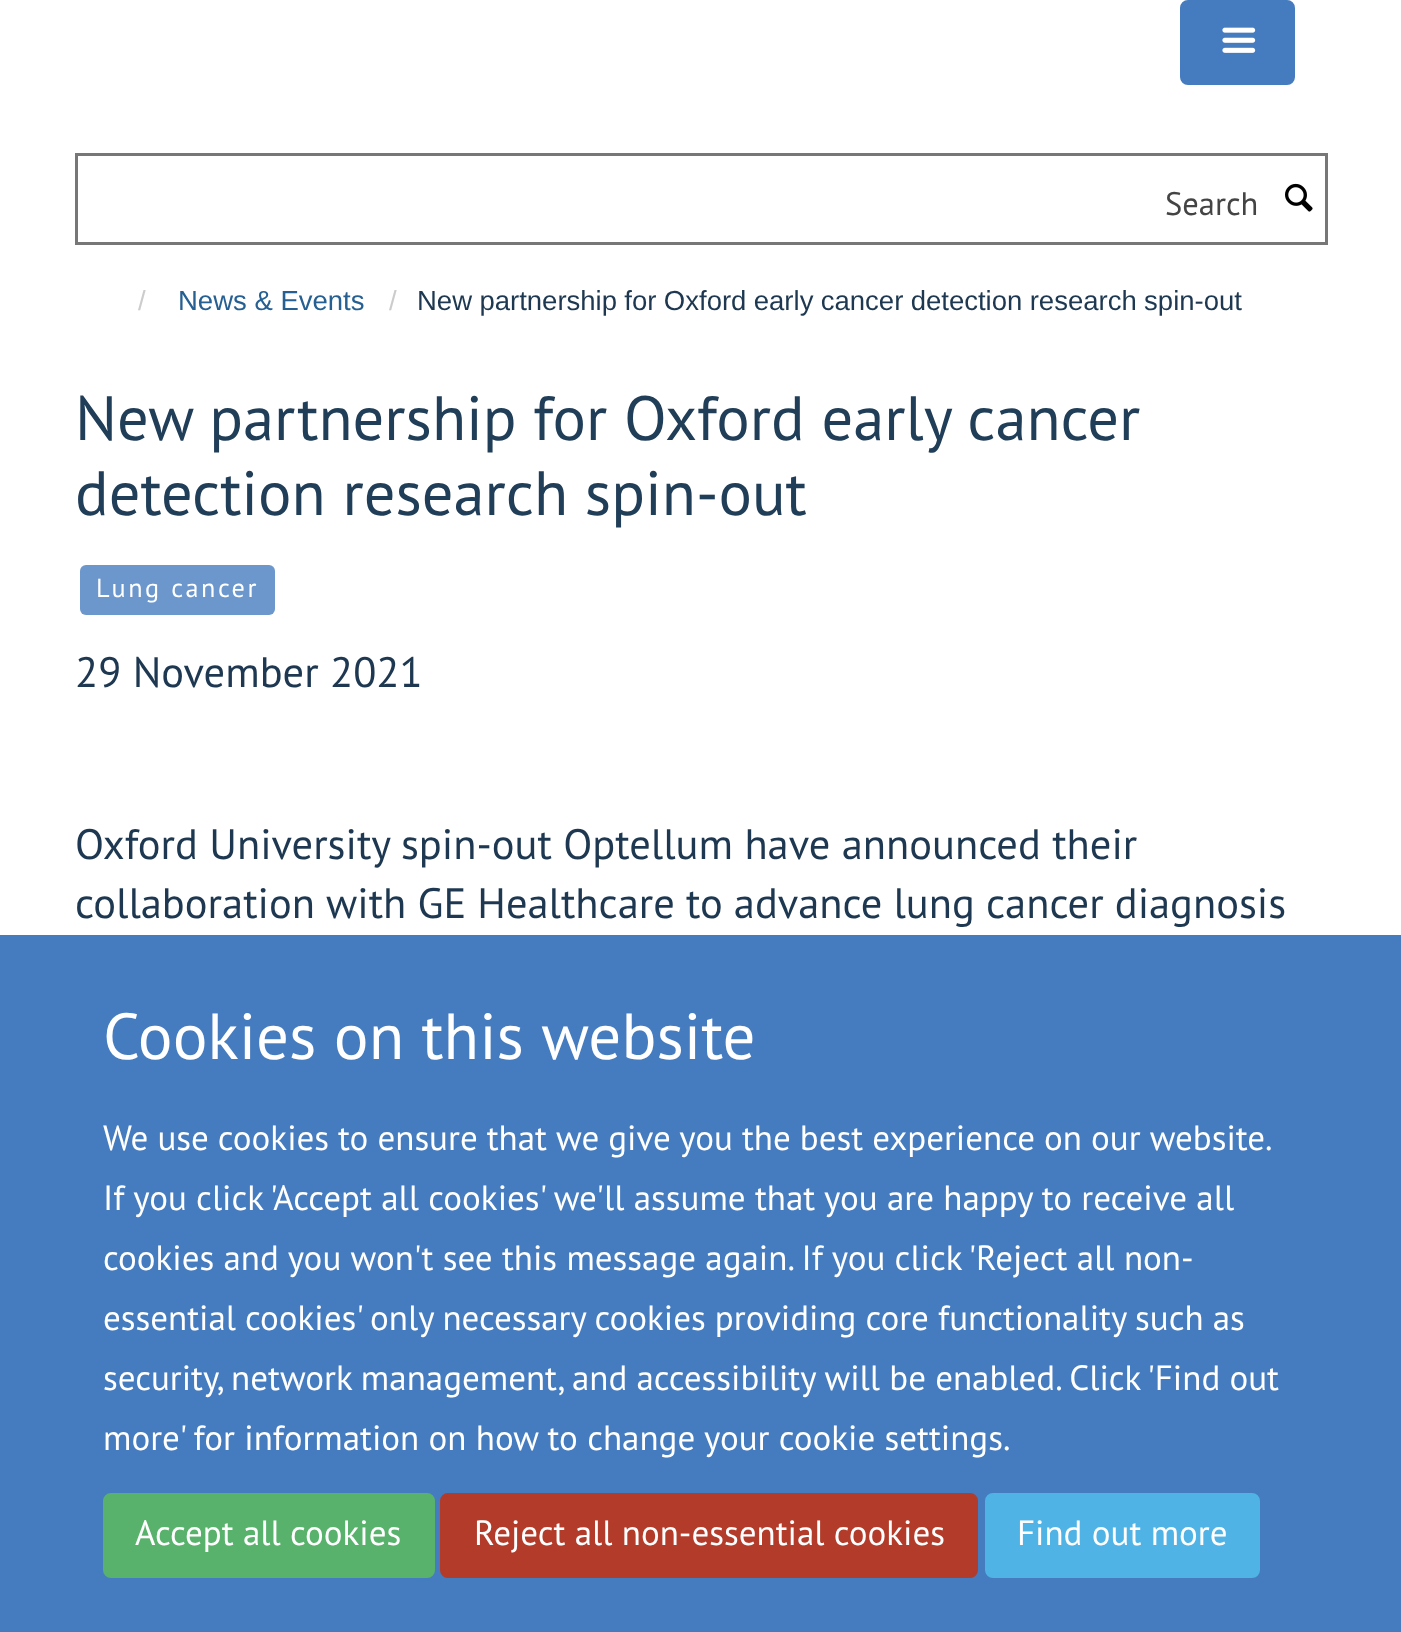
<svg xmlns="http://www.w3.org/2000/svg" xmlns:xlink="http://www.w3.org/1999/xlink" width="1401" height="1632" viewBox="0 0 1401 1632">
<style>
.cls-1{font:32.5px PT Sans;fill:#444444}
.cls-2{font:27.5px Liberation Sans;fill:#cccccc}
.cls-3{font:27.5px Liberation Sans;fill:#266093}
.cls-4{font:27.5px Liberation Sans;fill:#1d3850}
.cls-5{font:62.5px PT Sans;fill:#203e58}
.cls-6{font:26.25px PT Sans;letter-spacing:2.5px;fill:#ffffff}
.cls-7{font:42.5px PT Sans;fill:#1d3850}
.cls-8{font:65px PT Sans;fill:#ffffff}
.cls-9{font:35px PT Sans;fill:#ffffff}
</style>
<rect width="100%" height="100%" fill="#ffffff"/>
<rect fill="#457cbf" stroke="#457cbf" stroke-width="3" x="1181.5" y="1.5" width="112" height="82" rx="6.5"/>
<image xlink:href="image0.png" x="1222" y="27" width="34" height="26"/>
<rect fill="none" stroke="#777777" stroke-width="3" x="76.5" y="154.5" width="1250" height="89"/>
<image xlink:href="image1.png" x="1285" y="183" width="28" height="29"/>
<rect fill="#6b97cc" x="80" y="565" width="195" height="50" rx="6"/>
<rect fill="#457cbf" x="0" y="935" width="1401" height="697"/>
<rect fill="#59b26c" stroke="#59b26c" stroke-width="3" x="104.5" y="1494.5" width="329" height="82" rx="6.5"/>
<rect fill="#b23b2a" stroke="#b23b2a" stroke-width="3" x="441.5" y="1494.5" width="535" height="82" rx="6.5"/>
<rect fill="#4fb3e5" stroke="#4fb3e5" stroke-width="3" x="986.5" y="1494.5" width="272" height="82" rx="6.5"/>
<text class="cls-1" x="1165" y="215">Search</text>
<text class="cls-2" x="138" y="310">/</text>
<text class="cls-3" x="178" y="310">News &amp; Events</text>
<text class="cls-2" x="389" y="310">/</text>
<text class="cls-4" x="417" y="310" word-spacing="-0.25">New partnership for Oxford early cancer detection research spin-out</text>
<text class="cls-5"><tspan x="75" y="440">New partnership for Oxford early cancer</tspan><tspan x="75" y="515">detection research spin-out</tspan></text>
<text class="cls-6" x="96" y="597">Lung cancer</text>
<text class="cls-7" x="75" y="687">29 November 2021</text>
<text class="cls-7"><tspan x="75" y="859">Oxford University spin-out Optellum have announced their</tspan><tspan x="75" y="918" word-spacing="-0.25">collaboration with GE Healthcare to advance lung cancer diagnosis</tspan></text>
<text class="cls-8" x="103" y="1059">Cookies on this website</text>
<text class="cls-9"><tspan x="103" y="1150" word-spacing="-0.25">We use cookies to ensure that we give you the best experience on our website.</tspan><tspan x="103" y="1210">If you click 'Accept all cookies' we'll assume that you are happy to receive all</tspan><tspan x="103" y="1270">cookies and you won't see this message again. If you click 'Reject all non-</tspan><tspan x="103" y="1330" word-spacing="-0.25">essential cookies' only necessary cookies providing core functionality such as</tspan><tspan x="103" y="1390" word-spacing="-0.1">security, network management, and accessibility will be enabled. Click 'Find out</tspan><tspan x="103" y="1450">more' for information on how to change your cookie settings.</tspan></text>
<text class="cls-9" x="135" y="1545">Accept all cookies</text>
<text class="cls-9" x="474" y="1545">Reject all non-essential cookies</text>
<text class="cls-9" x="1017" y="1545">Find out more</text>
</svg>
